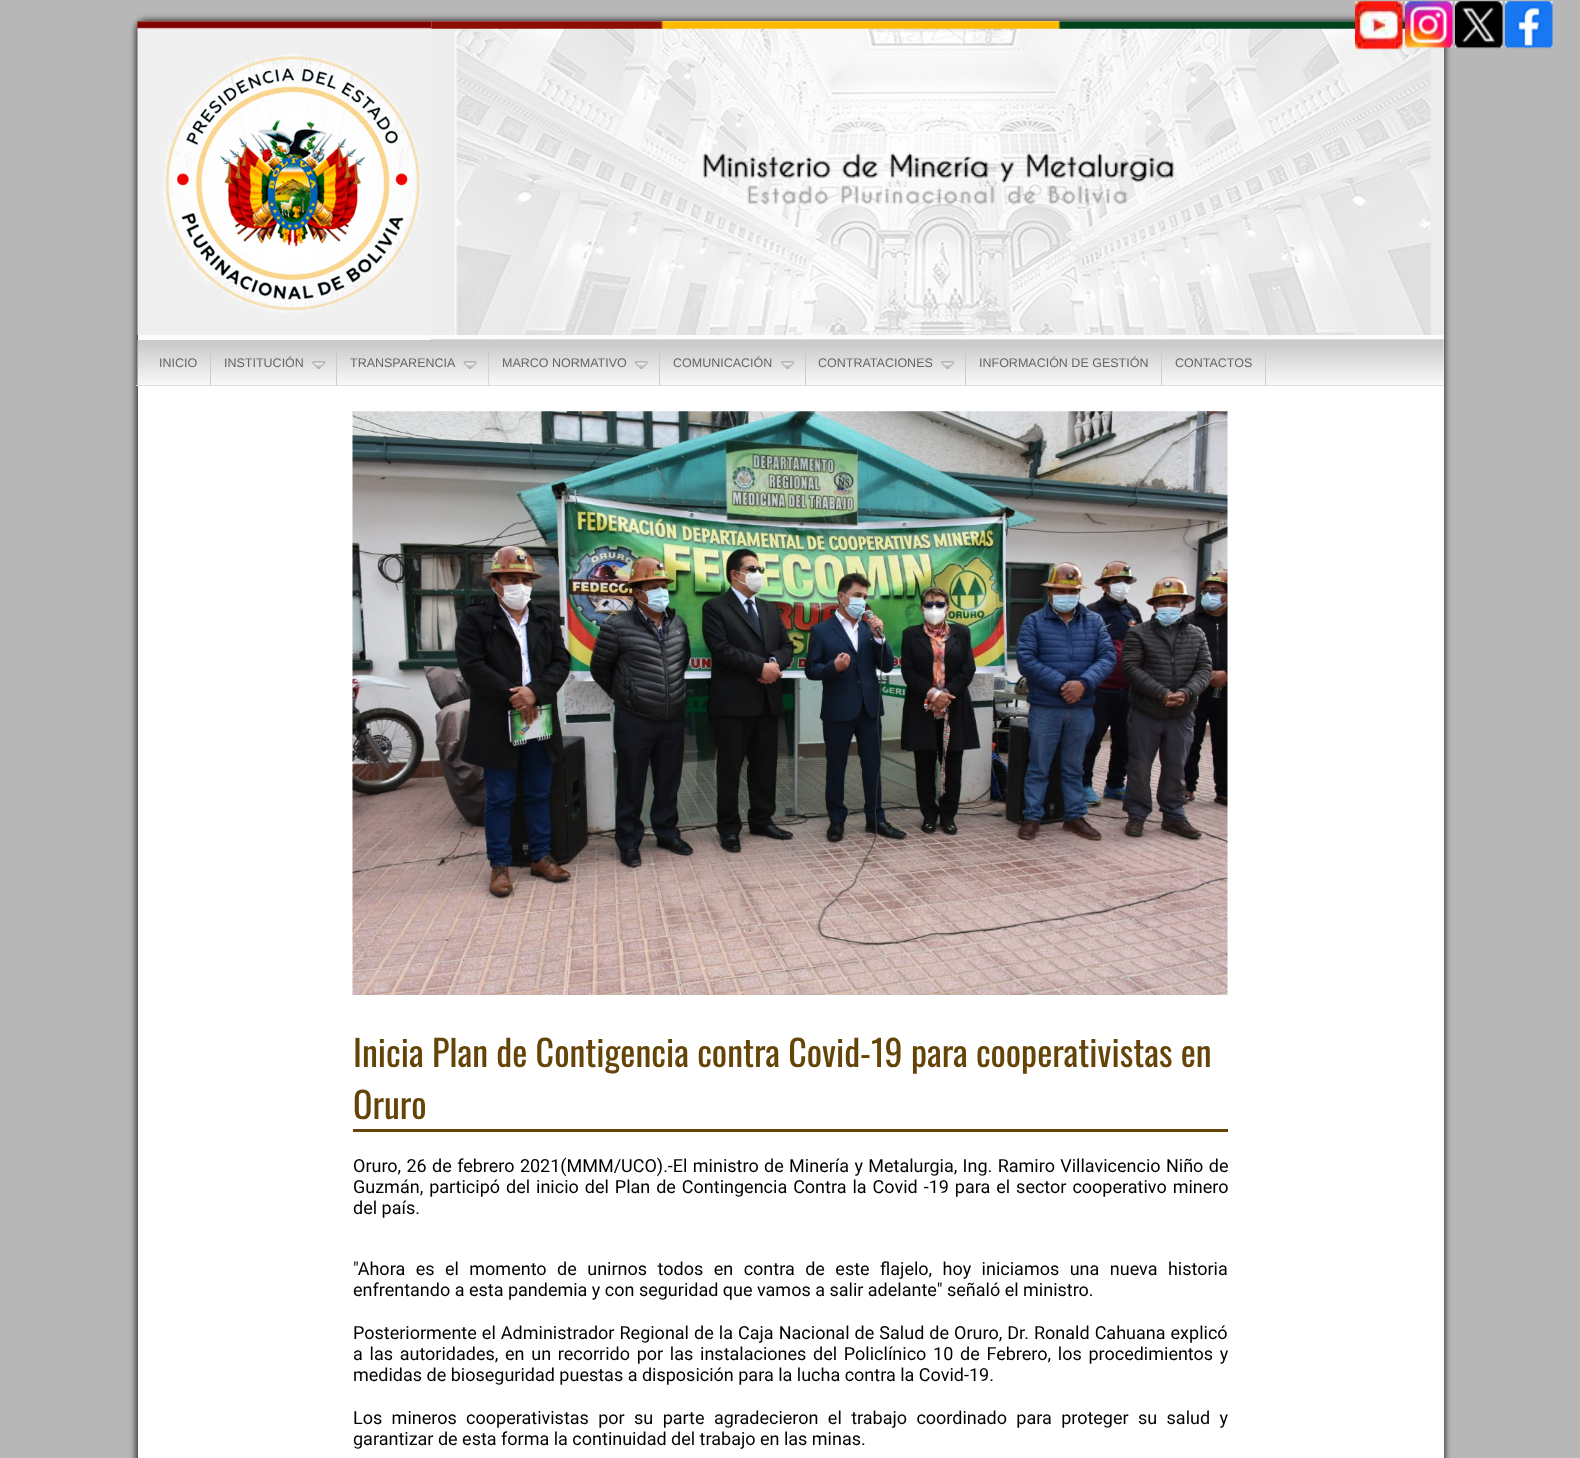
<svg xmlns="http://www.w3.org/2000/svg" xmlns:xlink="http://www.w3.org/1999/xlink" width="1580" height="1458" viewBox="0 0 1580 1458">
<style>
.cls-1{font:12.5px Liberation Sans;fill:#666666}
.cls-2{font:36px Oswald;fill:#654408}
.cls-3{font:18px Roboto;fill:#000000}
</style>
<rect width="100%" height="100%" fill="#b7b7b7"/>
<rect fill="#000000" fill-opacity="0.75" filter="blur(3px)" x="136" y="20" width="1309" height="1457" rx="10"/>
<rect fill="#fcfcfc" x="431" y="21" width="1013" height="318"/>
<rect fill="#fcfcfc" x="138" y="21" width="293" height="319"/>
<image xlink:href="image4.png" x="137" y="21" width="295" height="314"/>
<image xlink:href="image5.png" x="431" y="21" width="1013" height="314"/>
<image xlink:href="image0.png" x="1355" y="1" width="48" height="49"/>
<image xlink:href="image1.png" x="1405" y="1" width="48" height="48"/>
<image xlink:href="image2.png" x="1455" y="1" width="48" height="48"/>
<image xlink:href="image3.png" x="1505" y="1" width="48" height="48"/>
<rect fill="#ffffff" x="138" y="340" width="1306" height="1118"/>
<rect fill="#dddddd" x="430" y="339" width="1014" height="1"/>
<rect fill="#dddddd" x="136" y="385" width="1308" height="1"/>
<image xlink:href="image6.png" x="137" y="340" width="1307" height="45"/>
<rect fill="#cccccc" x="210" y="340" width="1" height="45"/>
<rect fill="#cccccc" x="336" y="340" width="1" height="45"/>
<image xlink:href="image7.png" x="312" y="361" width="14" height="8"/>
<rect fill="#cccccc" x="488" y="340" width="1" height="45"/>
<image xlink:href="image8.png" x="463" y="361" width="14" height="8"/>
<image xlink:href="image9.png" x="488" y="359" width="1" height="26"/>
<rect fill="#cccccc" x="659" y="340" width="1" height="45"/>
<image xlink:href="image10.png" x="635" y="361" width="13" height="8"/>
<rect fill="#cccccc" x="805" y="340" width="1" height="45"/>
<image xlink:href="image11.png" x="781" y="361" width="13" height="8"/>
<rect fill="#cccccc" x="965" y="340" width="1" height="45"/>
<image xlink:href="image11.png" x="941" y="361" width="13" height="8"/>
<rect fill="#cccccc" x="1161" y="340" width="1" height="45"/>
<rect fill="#cccccc" x="1265" y="340" width="1" height="45"/>
<image xlink:href="image12.png" x="352" y="411" width="876" height="584"/>
<rect fill="#654408" x="353" y="1129" width="875" height="3"/>
<text class="cls-1" x="159" y="367">INICIO</text>
<text class="cls-1" x="224" y="367">INSTITUCIÓN</text>
<text class="cls-1" x="350" y="367">TRANSPARENCIA</text>
<text class="cls-1" x="502" y="367">MARCO NORMATIVO</text>
<text class="cls-1" x="673" y="367">COMUNICACIÓN</text>
<text class="cls-1" x="818" y="367">CONTRATACIONES</text>
<text class="cls-1" x="979" y="367">INFORMACIÓN DE GESTIÓN</text>
<text class="cls-1" x="1175" y="367">CONTACTOS</text>
<text class="cls-2"><tspan x="353" y="1067">Inicia Plan de Contigencia contra Covid-19 para cooperativistas en</tspan><tspan x="353" y="1119">Oruro</tspan></text>
<text class="cls-3"><tspan x="353" y="1172" word-spacing="0.9">Oruro, 26 de febrero 2021(MMM/UCO).-El ministro de Minería y Metalurgia, Ing. Ramiro Villavicencio Niño de</tspan><tspan x="353" y="1193" word-spacing="1.5">Guzmán, participó del inicio del Plan de Contingencia Contra la Covid -19 para el sector cooperativo minero</tspan><tspan x="353" y="1214">del país.</tspan></text>
<text class="cls-3"><tspan x="353" y="1275" word-spacing="6">"Ahora es el momento de unirnos todos en contra de este flajelo, hoy iniciamos una nueva historia</tspan><tspan x="353" y="1296">enfrentando a esta pandemia y con seguridad que vamos a salir adelante" señaló el ministro.</tspan></text>
<text class="cls-3"><tspan x="353" y="1339" word-spacing="0.6">Posteriormente el Administrador Regional de la Caja Nacional de Salud de Oruro, Dr. Ronald Cahuana explicó</tspan><tspan x="353" y="1360" word-spacing="2.25">a las autoridades, en un recorrido por las instalaciones del Policlínico 10 de Febrero, los procedimientos y</tspan><tspan x="353" y="1381">medidas de bioseguridad puestas a disposición para la lucha contra la Covid-19.</tspan></text>
<text class="cls-3"><tspan x="353" y="1424" word-spacing="4.9">Los mineros cooperativistas por su parte agradecieron el trabajo coordinado para proteger su salud y</tspan><tspan x="353" y="1445">garantizar de esta forma la continuidad del trabajo en las minas.</tspan></text>
</svg>
